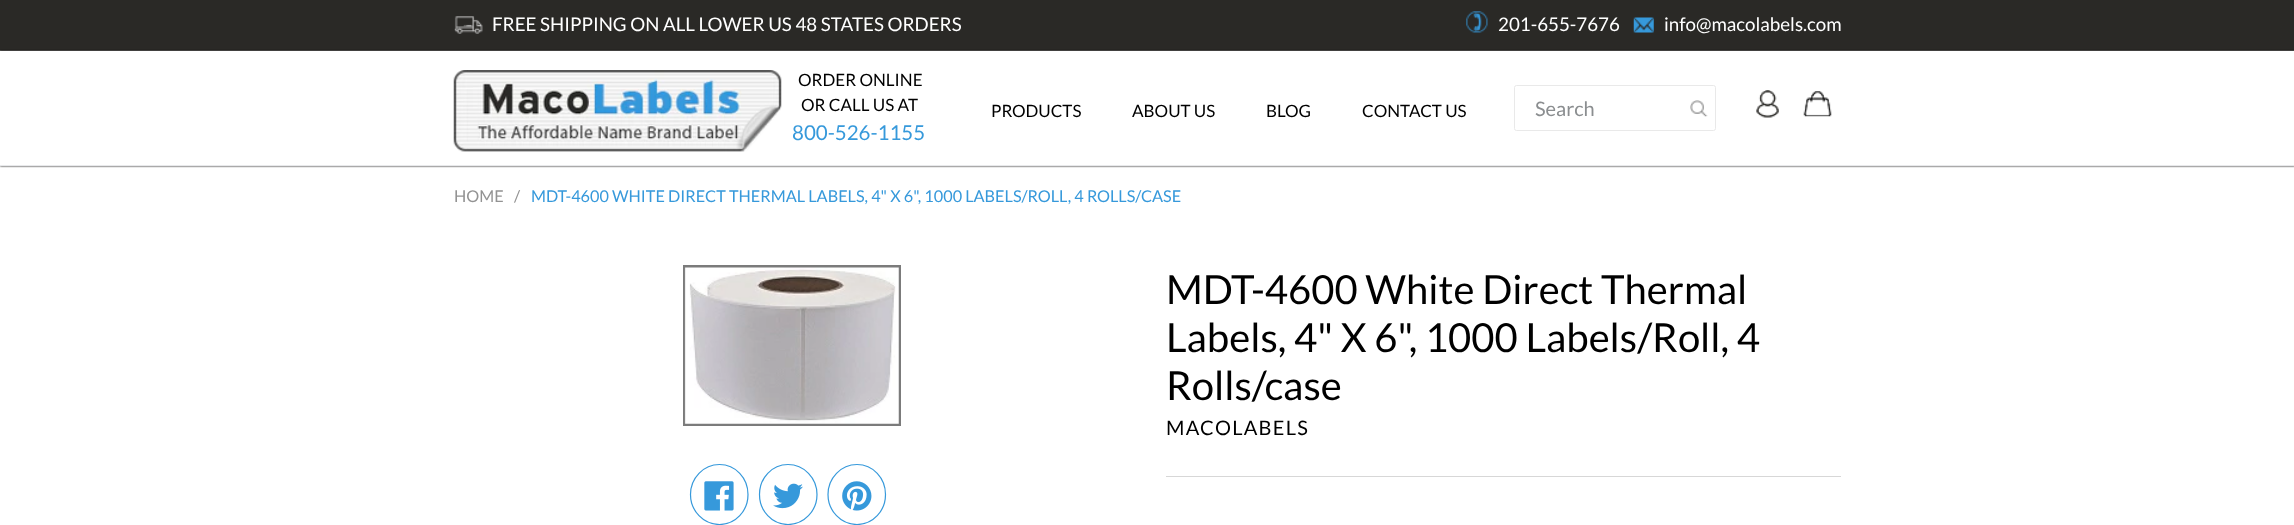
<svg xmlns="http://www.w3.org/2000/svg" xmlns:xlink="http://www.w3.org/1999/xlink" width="2294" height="525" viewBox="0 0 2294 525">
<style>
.cls-1{font:18.75px Lato;fill:#ffffff}
.cls-2{font:17px Lato;fill:#000000}
.cls-3{font:20.5px Lato;fill:#3699db}
.cls-4{font:20px Lato;fill:#8b8e90}
.cls-5{font:16.25px Lato;fill:#939393}
.cls-6{font:16.25px Lato;fill:#3699db}
.cls-7{font:40px Lato;fill:#000000}
.cls-8{font:20px Lato;letter-spacing:1.25px;fill:#000000}
</style>
<rect width="100%" height="100%" fill="#ffffff"/>
<rect fill="#2a2926" x="0" y="0" width="2294" height="50"/>
<rect fill="#636260" x="0" y="50" width="2294" height="1"/>
<image xlink:href="image0.png" x="454" y="16" width="29" height="18"/>
<image xlink:href="image1.png" x="1466" y="11" width="22" height="22"/>
<image xlink:href="image2.png" x="1633" y="17" width="21" height="16"/>
<rect fill="#000000" filter="blur(1px)" x="0" y="51" width="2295" height="115"/>
<rect fill="#ffffff" x="0" y="51" width="2294" height="114"/>
<rect fill="#e8e9eb" x="0" y="165" width="2294" height="1"/>
<image xlink:href="image3.png" x="453" y="70" width="329" height="82"/>
<rect fill="none" stroke="#e9e9e9" x="1514.5" y="85.5" width="201" height="45" rx="2"/>
<image xlink:href="image4.png" x="1690" y="100" width="18" height="17"/>
<image xlink:href="image5.png" x="1756" y="90" width="23" height="28"/>
<image xlink:href="image6.png" x="1803" y="91" width="29" height="26"/>
<rect fill="none" stroke="#7b7b7b" stroke-width="3" x="684.5" y="266.5" width="215" height="158"/>
<image xlink:href="image7.png" x="684" y="267" width="215" height="157"/>
<path fill="none" stroke="#3699db" stroke-width="1.2" d="M719.5 464.5C735.5 464.5 748 478 748 494.5C748 511 735.5 524.5 719.5 524.5C703.5 524.5 690.5 511 690.5 494.5C690.5 478 703.5 464.5 719.5 464.5Z"/>
<image xlink:href="image8.png" x="704" y="481" width="30" height="30"/>
<path fill="none" stroke="#3699db" stroke-width="1.2" d="M788 464.5C804 464.5 817 478 817 494.5C817 511 804 524.5 788 524.5C772 524.5 759.5 511 759.5 494.5C759.5 478 772 464.5 788 464.5Z"/>
<image xlink:href="image9.png" x="773" y="483" width="30" height="26"/>
<path fill="none" stroke="#3699db" stroke-width="1.2" d="M857 464.5C873 464.5 885.5 478 885.5 494.5C885.5 511 873 524.5 857 524.5C841 524.5 828 511 828 494.5C828 478 841 464.5 857 464.5Z"/>
<image xlink:href="image10.png" x="842" y="481" width="30" height="30"/>
<rect fill="#d7d7d7" x="1166" y="476" width="675" height="1"/>
<text class="cls-1" x="492" y="31">FREE SHIPPING ON ALL LOWER US 48 STATES ORDERS</text>
<text class="cls-1" x="1498" y="31">201-655-7676</text>
<text class="cls-1" x="1664" y="31">info@macolabels.com</text>
<text class="cls-2" x="798" y="86">ORDER ONLINE</text>
<text class="cls-2" x="801" y="111">OR CALL US AT</text>
<text class="cls-3" x="792" y="140">800-526-1155</text>
<text class="cls-2" x="991" y="117">PRODUCTS</text>
<text class="cls-2" x="1132" y="117">ABOUT US</text>
<text class="cls-2" x="1266" y="117">BLOG</text>
<text class="cls-2" x="1362" y="117">CONTACT US</text>
<text class="cls-4" x="1535" y="116">Search</text>
<text class="cls-5" x="454" y="202">HOME</text>
<text class="cls-5" x="514" y="202">/</text>
<text class="cls-6" x="531" y="202">MDT-4600 WHITE DIRECT THERMAL LABELS, 4" X 6", 1000 LABELS/ROLL, 4 ROLLS/CASE</text>
<text class="cls-7"><tspan x="1166" y="304">MDT-4600 White Direct Thermal</tspan><tspan x="1166" y="352">Labels, 4" X 6", 1000 Labels/Roll, 4</tspan><tspan x="1166" y="400">Rolls/case</tspan></text>
<text class="cls-8" x="1166" y="435">MACOLABELS</text>
</svg>
